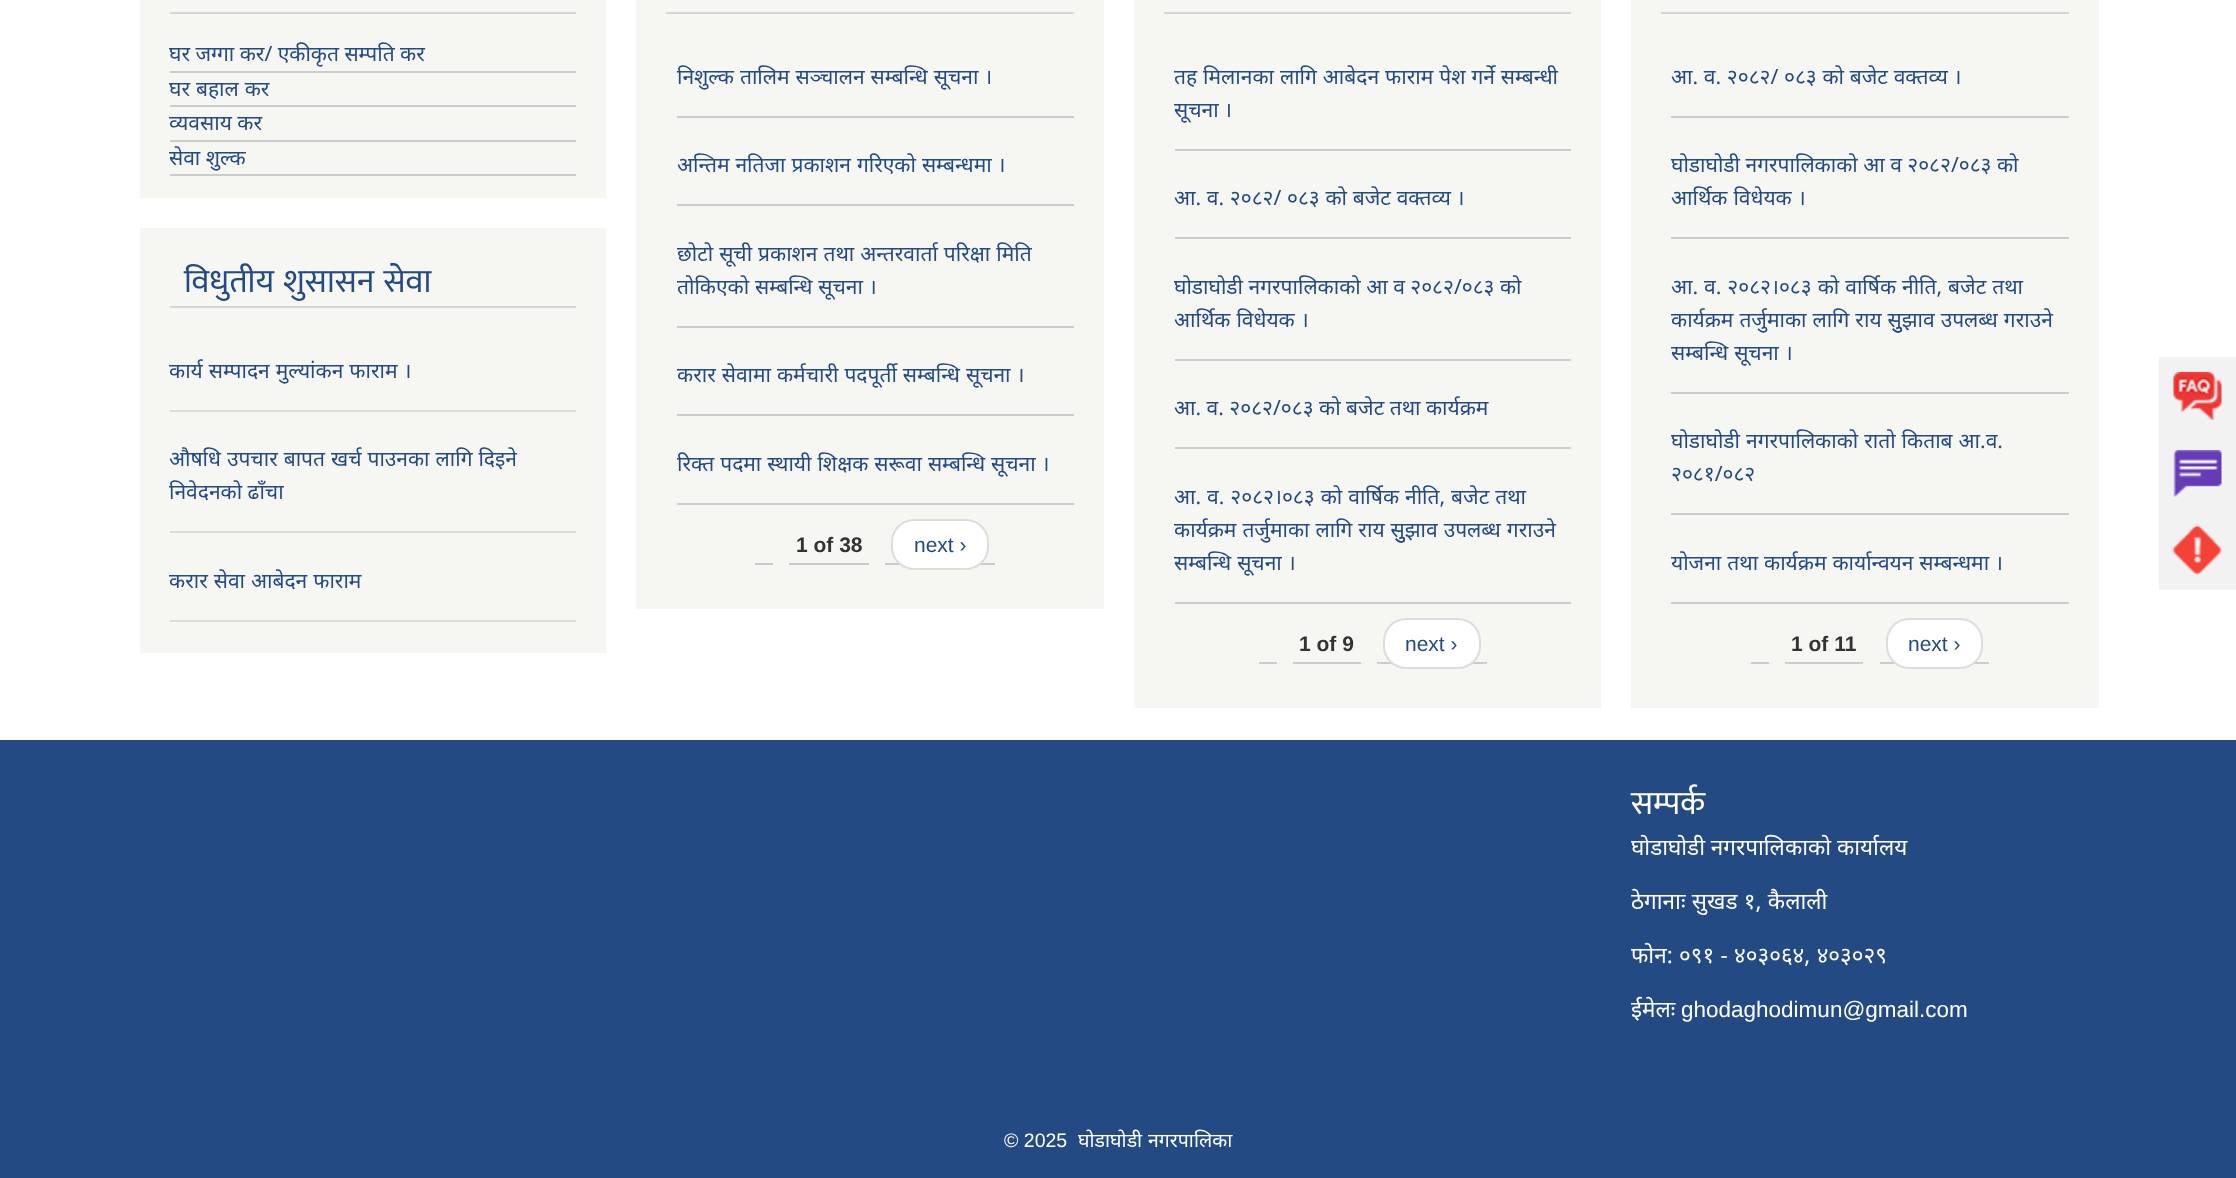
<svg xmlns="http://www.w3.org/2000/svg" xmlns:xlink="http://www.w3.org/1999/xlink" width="2236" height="1178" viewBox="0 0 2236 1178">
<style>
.cls-1{font:21px Noto Sans;fill:#234a83}
.cls-2{font:33px Mukta;fill:#234a83}
.cls-3{font:bold 21px Liberation Sans;fill:#333333}
.cls-4{font:21px Liberation Sans;fill:#234a83}
.cls-5{font:33px Mukta;fill:#ffffff}
.cls-6{font:22.5px Noto Sans;fill:#ffffff}
.cls-7{font:22.5px Liberation Sans;fill:#ffffff}
.cls-8{font:19.5px Liberation Sans;fill:#ffffff}
.cls-9{font:19.5px Noto Sans;fill:#ffffff}
</style>
<rect width="100%" height="100%" fill="#ffffff"/>
<rect fill="#f6f6f2" x="140" y="0" width="466" height="198"/>
<rect fill="#d6d6d6" x="170" y="12" width="406" height="2"/>
<rect fill="#cccccc" x="170" y="71" width="406" height="2"/>
<rect fill="#cccccc" x="170" y="105" width="406" height="2"/>
<rect fill="#cccccc" x="170" y="140" width="406" height="2"/>
<rect fill="#cccccc" x="170" y="174" width="406" height="2"/>
<rect fill="#f6f6f2" x="140" y="228" width="466" height="425"/>
<rect fill="#d6d6d6" x="170" y="306" width="406" height="2"/>
<rect fill="#daddd8" x="170" y="410" width="406" height="2"/>
<rect fill="#daddd8" x="170" y="531" width="406" height="2"/>
<rect fill="#daddd8" x="170" y="620" width="406" height="2"/>
<rect fill="#f6f6f2" x="636" y="0" width="468" height="609"/>
<rect fill="#d6d6d6" x="666" y="12" width="408" height="2"/>
<rect fill="#cccccc" x="677" y="116" width="397" height="2"/>
<rect fill="#cccccc" x="677" y="204" width="397" height="2"/>
<rect fill="#cccccc" x="677" y="326" width="397" height="2"/>
<rect fill="#cccccc" x="677" y="414" width="397" height="2"/>
<rect fill="#cccccc" x="677" y="503" width="397" height="2"/>
<rect fill="#cccccc" x="789" y="563" width="80" height="2"/>
<rect fill="#cccccc" x="885" y="563" width="110" height="2"/>
<rect fill="#ffffff" stroke="#dddddd" stroke-width="2" x="892" y="520" width="96" height="49" rx="22"/>
<rect fill="#cccccc" x="755" y="563" width="18" height="2"/>
<rect fill="#f6f6f2" x="1134" y="0" width="467" height="708"/>
<rect fill="#d6d6d6" x="1164" y="12" width="407" height="2"/>
<rect fill="#cccccc" x="1175" y="149" width="396" height="2"/>
<rect fill="#cccccc" x="1175" y="237" width="396" height="2"/>
<rect fill="#cccccc" x="1175" y="359" width="396" height="2"/>
<rect fill="#cccccc" x="1175" y="447" width="396" height="2"/>
<rect fill="#cccccc" x="1175" y="602" width="396" height="2"/>
<rect fill="#cccccc" x="1293" y="662" width="68" height="2"/>
<rect fill="#cccccc" x="1377" y="662" width="110" height="2"/>
<rect fill="#ffffff" stroke="#dddddd" stroke-width="2" x="1384" y="619" width="96" height="49" rx="22"/>
<rect fill="#cccccc" x="1259" y="662" width="18" height="2"/>
<rect fill="#f6f6f2" x="1631" y="0" width="468" height="708"/>
<rect fill="#d6d6d6" x="1661" y="12" width="408" height="2"/>
<rect fill="#cccccc" x="1671" y="116" width="398" height="2"/>
<rect fill="#cccccc" x="1671" y="237" width="398" height="2"/>
<rect fill="#cccccc" x="1671" y="392" width="398" height="2"/>
<rect fill="#cccccc" x="1671" y="513" width="398" height="2"/>
<rect fill="#cccccc" x="1671" y="602" width="398" height="2"/>
<rect fill="#cccccc" x="1785" y="662" width="78" height="2"/>
<rect fill="#cccccc" x="1880" y="662" width="109" height="2"/>
<rect fill="#ffffff" stroke="#dddddd" stroke-width="2" x="1887" y="619" width="95" height="49" rx="22"/>
<rect fill="#cccccc" x="1751" y="662" width="18" height="2"/>
<rect fill="#f2f2f2" x="2159" y="357" width="77" height="233"/>
<image xlink:href="image0.png" x="2173" y="372" width="49" height="48"/>
<image xlink:href="image1.png" x="2173" y="450" width="49" height="47"/>
<image xlink:href="image2.png" x="2173" y="526" width="49" height="49"/>
<rect fill="#234a83" x="0" y="740" width="2236" height="438"/>
<text class="cls-1"><tspan x="169" y="61">घर जग्गा कर/ एकीकृत सम्पति कर</tspan><tspan x="169" y="96" word-spacing="0.5">घर बहाल कर</tspan><tspan x="169" y="130">व्यवसाय कर</tspan><tspan x="169" y="165">सेवा शुल्क</tspan></text>
<text class="cls-2" x="184" y="292" word-spacing="2">विधुतीय शुसासन सेवा</text>
<text class="cls-1" x="169" y="378" word-spacing="0.5">कार्य सम्पादन मुल्यांकन फाराम ।</text>
<text class="cls-1"><tspan x="169" y="466" word-spacing="0.5">औषधि उपचार बापत खर्च पाउनका लागि दिइने</tspan><tspan x="169" y="499">निवेदनको ढाँचा</tspan></text>
<text class="cls-1" x="169" y="588" word-spacing="0.5">करार सेवा आबेदन फाराम</text>
<text class="cls-1" x="677" y="84" word-spacing="0.5">निशुल्क तालिम सञ्चालन सम्बन्धि सूचना ।</text>
<text class="cls-1" x="677" y="172" word-spacing="0.5">अन्तिम नतिजा प्रकाशन गरिएको सम्बन्धमा ।</text>
<text class="cls-1"><tspan x="677" y="261" word-spacing="0.5">छोटो सूची प्रकाशन तथा अन्तरवार्ता परिक्षा मिति</tspan><tspan x="677" y="294" word-spacing="0.5">तोकिएको सम्बन्धि सूचना ।</tspan></text>
<text class="cls-1" x="677" y="382" word-spacing="0.5">करार सेवामा कर्मचारी पदपूर्ती सम्बन्धि सूचना ।</text>
<text class="cls-1" x="677" y="471" word-spacing="0.5">रिक्त पदमा स्थायी शिक्षक सरूवा सम्बन्धि सूचना ।</text>
<text class="cls-3" x="796" y="552">1 of 38</text>
<text class="cls-4" x="914" y="552">next ›</text>
<text class="cls-1"><tspan x="1174" y="84" word-spacing="0.5">तह मिलानका लागि आबेदन फाराम पेश गर्ने सम्बन्धी</tspan><tspan x="1174" y="117">सूचना ।</tspan></text>
<text class="cls-1" x="1174" y="205" word-spacing="0.25">आ. व. २०८२/ ०८३ को बजेट वक्तव्य ।</text>
<text class="cls-1"><tspan x="1174" y="294">घोडाघोडी नगरपालिकाको आ व २०८२/०८३ को</tspan><tspan x="1174" y="327" word-spacing="0.5">आर्थिक विधेयक ।</tspan></text>
<text class="cls-1" x="1174" y="415">आ. व. २०८२/०८३ को बजेट तथा कार्यक्रम</text>
<text class="cls-1"><tspan x="1174" y="504" word-spacing="0.5">आ. व. २०८२।०८३ को वार्षिक नीति, बजेट तथा</tspan><tspan x="1174" y="537" word-spacing="0.5">कार्यक्रम तर्जुमाका लागि राय सुुझाव उपलब्ध गराउने</tspan><tspan x="1174" y="570" word-spacing="0.5">सम्बन्धि सूचना ।</tspan></text>
<text class="cls-3" x="1299" y="651">1 of 9</text>
<text class="cls-4" x="1405" y="651">next ›</text>
<text class="cls-1" x="1671" y="84" word-spacing="0.25">आ. व. २०८२/ ०८३ को बजेट वक्तव्य ।</text>
<text class="cls-1"><tspan x="1671" y="172">घोडाघोडी नगरपालिकाको आ व २०८२/०८३ को</tspan><tspan x="1671" y="205" word-spacing="0.5">आर्थिक विधेयक ।</tspan></text>
<text class="cls-1"><tspan x="1671" y="294" word-spacing="0.5">आ. व. २०८२।०८३ को वार्षिक नीति, बजेट तथा</tspan><tspan x="1671" y="327" word-spacing="0.5">कार्यक्रम तर्जुमाका लागि राय सुुझाव उपलब्ध गराउने</tspan><tspan x="1671" y="360" word-spacing="0.5">सम्बन्धि सूचना ।</tspan></text>
<text class="cls-1"><tspan x="1671" y="448" word-spacing="0.5">घोडाघोडी नगरपालिकाको रातो किताब आ.व.</tspan><tspan x="1671" y="481">२०८१/०८२</tspan></text>
<text class="cls-1" x="1671" y="570" word-spacing="0.5">योजना तथा कार्यक्रम कार्यान्वयन सम्बन्धमा ।</text>
<text class="cls-3" x="1791" y="651">1 of 11</text>
<text class="cls-4" x="1908" y="651">next ›</text>
<text class="cls-5" x="1631" y="814">सम्पर्क</text>
<text class="cls-6" x="1631" y="855">घोडाघोडी नगरपालिकाको कार्यालय</text>
<text class="cls-6" x="1631" y="909" word-spacing="0.5">ठेगानाः सुखड १, कैलाली</text>
<text class="cls-6" x="1631" y="963" word-spacing="0.5">फोन: ०९१ - ४०३०६४, ४०३०२९</text>
<text class="cls-6" x="1631" y="1017">ईमेलः</text>
<text class="cls-7" x="1681" y="1017">ghodaghodimun@gmail.com</text>
<text class="cls-8" x="1004" y="1147">© 2025</text>
<text class="cls-9" x="1078" y="1147">घोडाघोडी</text>
<text class="cls-9" x="1148" y="1147">नगरपालिका</text>
</svg>
